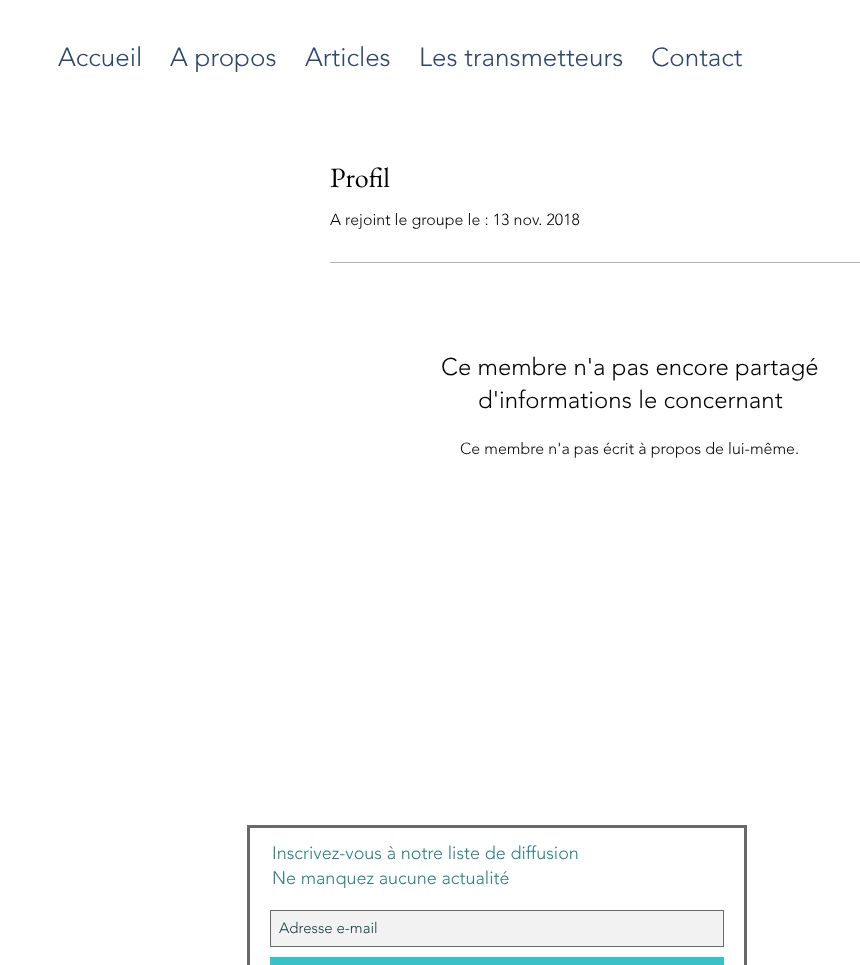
<svg xmlns="http://www.w3.org/2000/svg" xmlns:xlink="http://www.w3.org/1999/xlink" width="860" height="965" viewBox="0 0 860 965">
<style>
.cls-1{font:300 26px 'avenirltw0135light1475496';fill:#2d4870}
.cls-2{font:28px EB Garamond;fill:#000000}
.cls-3{font:300 16px 'avenirltw0135light1475496';fill:#000000}
.cls-4{font:300 24px 'avenirltw0135light1475496';fill:#000000}
.cls-5{font:300 18px 'avenirltw0135light1475496';fill:#278085}
.cls-6{font:300 15px 'avenirltw0135light1475496';fill:#134042}
</style>
<rect width="100%" height="100%" fill="#ffffff"/>
<rect fill="#b3b3b3" x="330" y="262" width="530" height="1"/>
<rect fill="none" stroke="#696969" stroke-width="3" x="248.5" y="826.5" width="497" height="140"/>
<rect fill="#f2f2f2" stroke="#696969" x="270.5" y="910.5" width="453" height="36"/>
<rect fill="#3ac0c7" x="270" y="957" width="454" height="8"/>
<text class="cls-1" x="58" y="66">Accueil</text>
<text class="cls-1" x="170" y="66">A propos</text>
<text class="cls-1" x="305" y="66">Articles</text>
<text class="cls-1" x="419" y="66">Les transmetteurs</text>
<text class="cls-1" x="651" y="66">Contact</text>
<text class="cls-2" x="330" y="187">Profil</text>
<text class="cls-3" x="330" y="225">A rejoint le groupe le : 13 nov. 2018</text>
<text class="cls-4" x="441" y="375">Ce membre n'a pas encore partagé</text>
<text class="cls-4" x="478" y="408">d'informations le concernant</text>
<text class="cls-3" x="460" y="454">Ce membre n'a pas écrit à propos de lui-même.</text>
<text class="cls-5"><tspan x="272" y="859">Inscrivez-vous à notre liste de diffusion</tspan><tspan x="272" y="884">Ne manquez aucune actualité</tspan></text>
<text class="cls-6" x="279" y="933">Adresse e-mail</text>
</svg>
